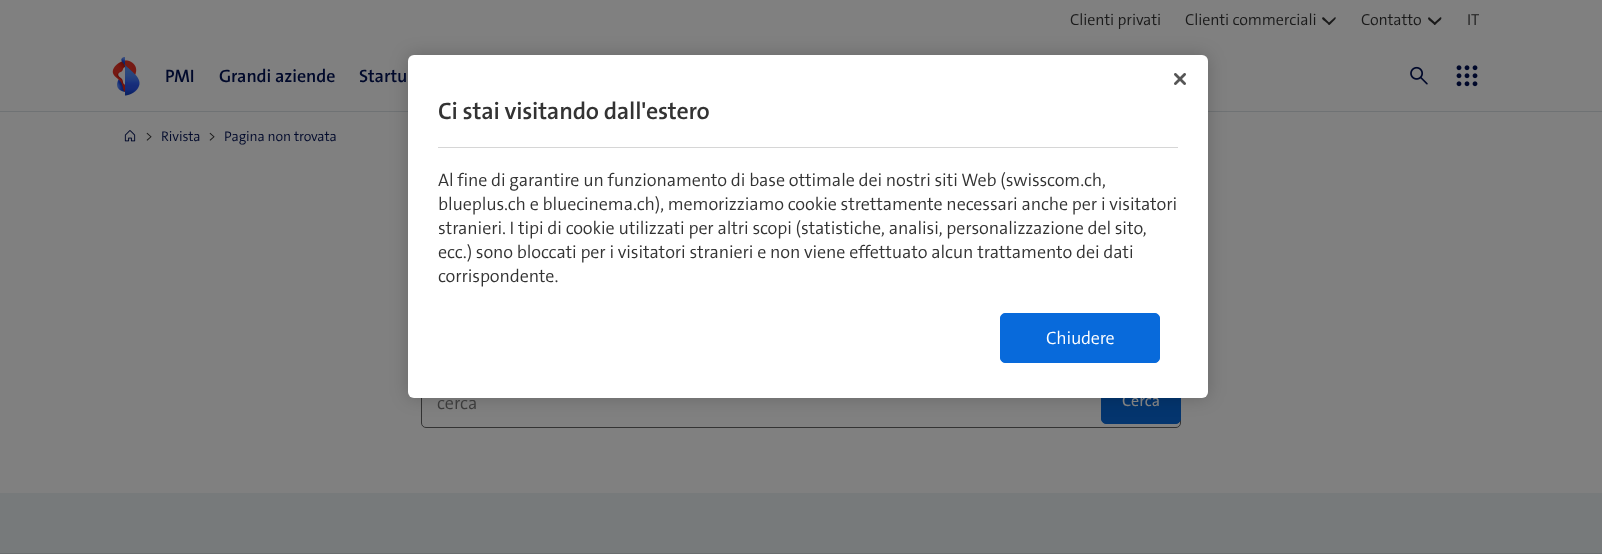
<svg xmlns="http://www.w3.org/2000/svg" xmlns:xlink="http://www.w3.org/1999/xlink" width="1602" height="554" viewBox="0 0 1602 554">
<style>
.cls-1{font:300 16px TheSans;letter-spacing:-0.1px;fill:#1a1a1a}
.cls-2{font:600 18px TheSans;letter-spacing:-0.1px;fill:#00092b}
.cls-3{font:300 14px TheSans;letter-spacing:-0.1px;fill:#1a1a1a}
.cls-4{font:300 14px TheSans;letter-spacing:-0.1px;fill:#00092b}
.cls-5{font:300 18px TheSans;fill:#3b3b3b}
.cls-6{font:500 16px TheSans;fill:#808080}
.cls-7{font:300 18px TheSans;letter-spacing:-0.25px;fill:#ffffff}
.cls-8{font:300 18px TheSans;letter-spacing:-0.1px;fill:#333333}
.cls-9{font:600 24px TheSans;letter-spacing:-0.25px;fill:#333333}
</style>
<rect width="100%" height="100%" fill="#808080"/>
<path fill="#1a1a1a" d="M1324 17.5L1328.5 22C1331 24.5 1329.5 26 1327.5 23.5L1324.5 21C1324 20.5 1321 18.5 1322.5 17.5C1323 17 1323.5 17 1324 17.5Z"/>
<path fill="#1a1a1a" d="M1328.5 23L1333.5 18.5C1335.5 16 1337 17.5 1334.5 20L1332 22.5C1331.5 23 1329.5 26 1328.5 24.5C1328 24 1328.5 23.5 1328.5 23Z"/>
<path fill="#1a1a1a" d="M1429.5 17.5L1434.5 22C1436.5 24.5 1435 26 1433 23.5L1430 21C1429.5 20.5 1427 18.5 1428.5 17.5C1429 17 1429.5 17 1429.5 17.5Z"/>
<path fill="#1a1a1a" d="M1434 23L1439 18.5C1441 16 1442.5 17.5 1440.5 20L1437.5 22.5C1437 23 1435 26 1434 24.5C1434 24 1434 23.5 1434 23Z"/>
<image xlink:href="image0.png" x="112" y="57" width="28" height="39"/>
<image xlink:href="image1.png" x="1410" y="66" width="18" height="19"/>
<image xlink:href="image2.png" x="1456" y="65" width="22" height="22"/>
<rect fill="#6f7274" x="0" y="111" width="1602" height="1"/>
<image xlink:href="image3.png" x="124" y="130" width="12" height="12"/>
<rect fill="none" stroke="#333333" x="421.5" y="378.5" width="759" height="49" rx="4.5"/>
<rect fill="#04356e" stroke="#04356e" x="1101.5" y="378.5" width="79" height="45" rx="4.5"/>
<rect fill="#000000" fill-opacity="0.2" filter="blur(9px)" x="408" y="55" width="800" height="343" rx="6"/>
<rect fill="#777a7b" x="0" y="493" width="1602" height="61"/>
<rect fill="#000000" fill-opacity="0.1" x="0" y="553" width="1602" height="1"/>
<text class="cls-1" x="1070" y="25">Clienti privati</text>
<text class="cls-1" x="1185" y="25">Clienti commerciali</text>
<text class="cls-1" x="1361" y="25">Contatto</text>
<text class="cls-1" x="1467" y="25">IT</text>
<text class="cls-2" x="165" y="82">PMI</text>
<text class="cls-2" x="219" y="82">Grandi aziende</text>
<text class="cls-2" x="359" y="82">Startu</text>
<text class="cls-3" x="145" y="141">&gt;</text>
<text class="cls-4" x="161" y="141">Rivista</text>
<text class="cls-3" x="208" y="141">&gt;</text>
<text class="cls-4" x="224" y="141">Pagina non trovata</text>
<text class="cls-5" x="437" y="409">cerca</text>
<text class="cls-6" x="1122" y="406">Cerca</text>
<rect fill="#ffffff" x="408" y="55" width="800" height="343" rx="6"/>
<image xlink:href="image4.png" x="1174" y="73" width="12" height="12"/>
<rect fill="#086adb" stroke="#086adb" x="1000.5" y="313.5" width="159" height="49" rx="4.5"/>
<text class="cls-7" x="1046" y="344">Chiudere</text>
<text class="cls-8" x="438" y="282">corrispondente.</text>
<text class="cls-8" x="438" y="258">ecc.) sono bloccati per i visitatori stranieri e non viene effettuato alcun trattamento dei dati</text>
<text class="cls-8" x="438" y="234">stranieri. I tipi di cookie utilizzati per altri scopi (statistiche, analisi, personalizzazione del sito,</text>
<text class="cls-8" x="438" y="210">blueplus.ch e bluecinema.ch), memorizziamo cookie strettamente necessari anche per i visitatori</text>
<text class="cls-8" x="438" y="186">Al fine di garantire un funzionamento di base ottimale dei nostri siti Web (swisscom.ch,</text>
<rect fill="#d6d6d6" x="438" y="147" width="740" height="1"/>
<text class="cls-9" x="438" y="119">Ci stai visitando dall'estero</text>
</svg>
